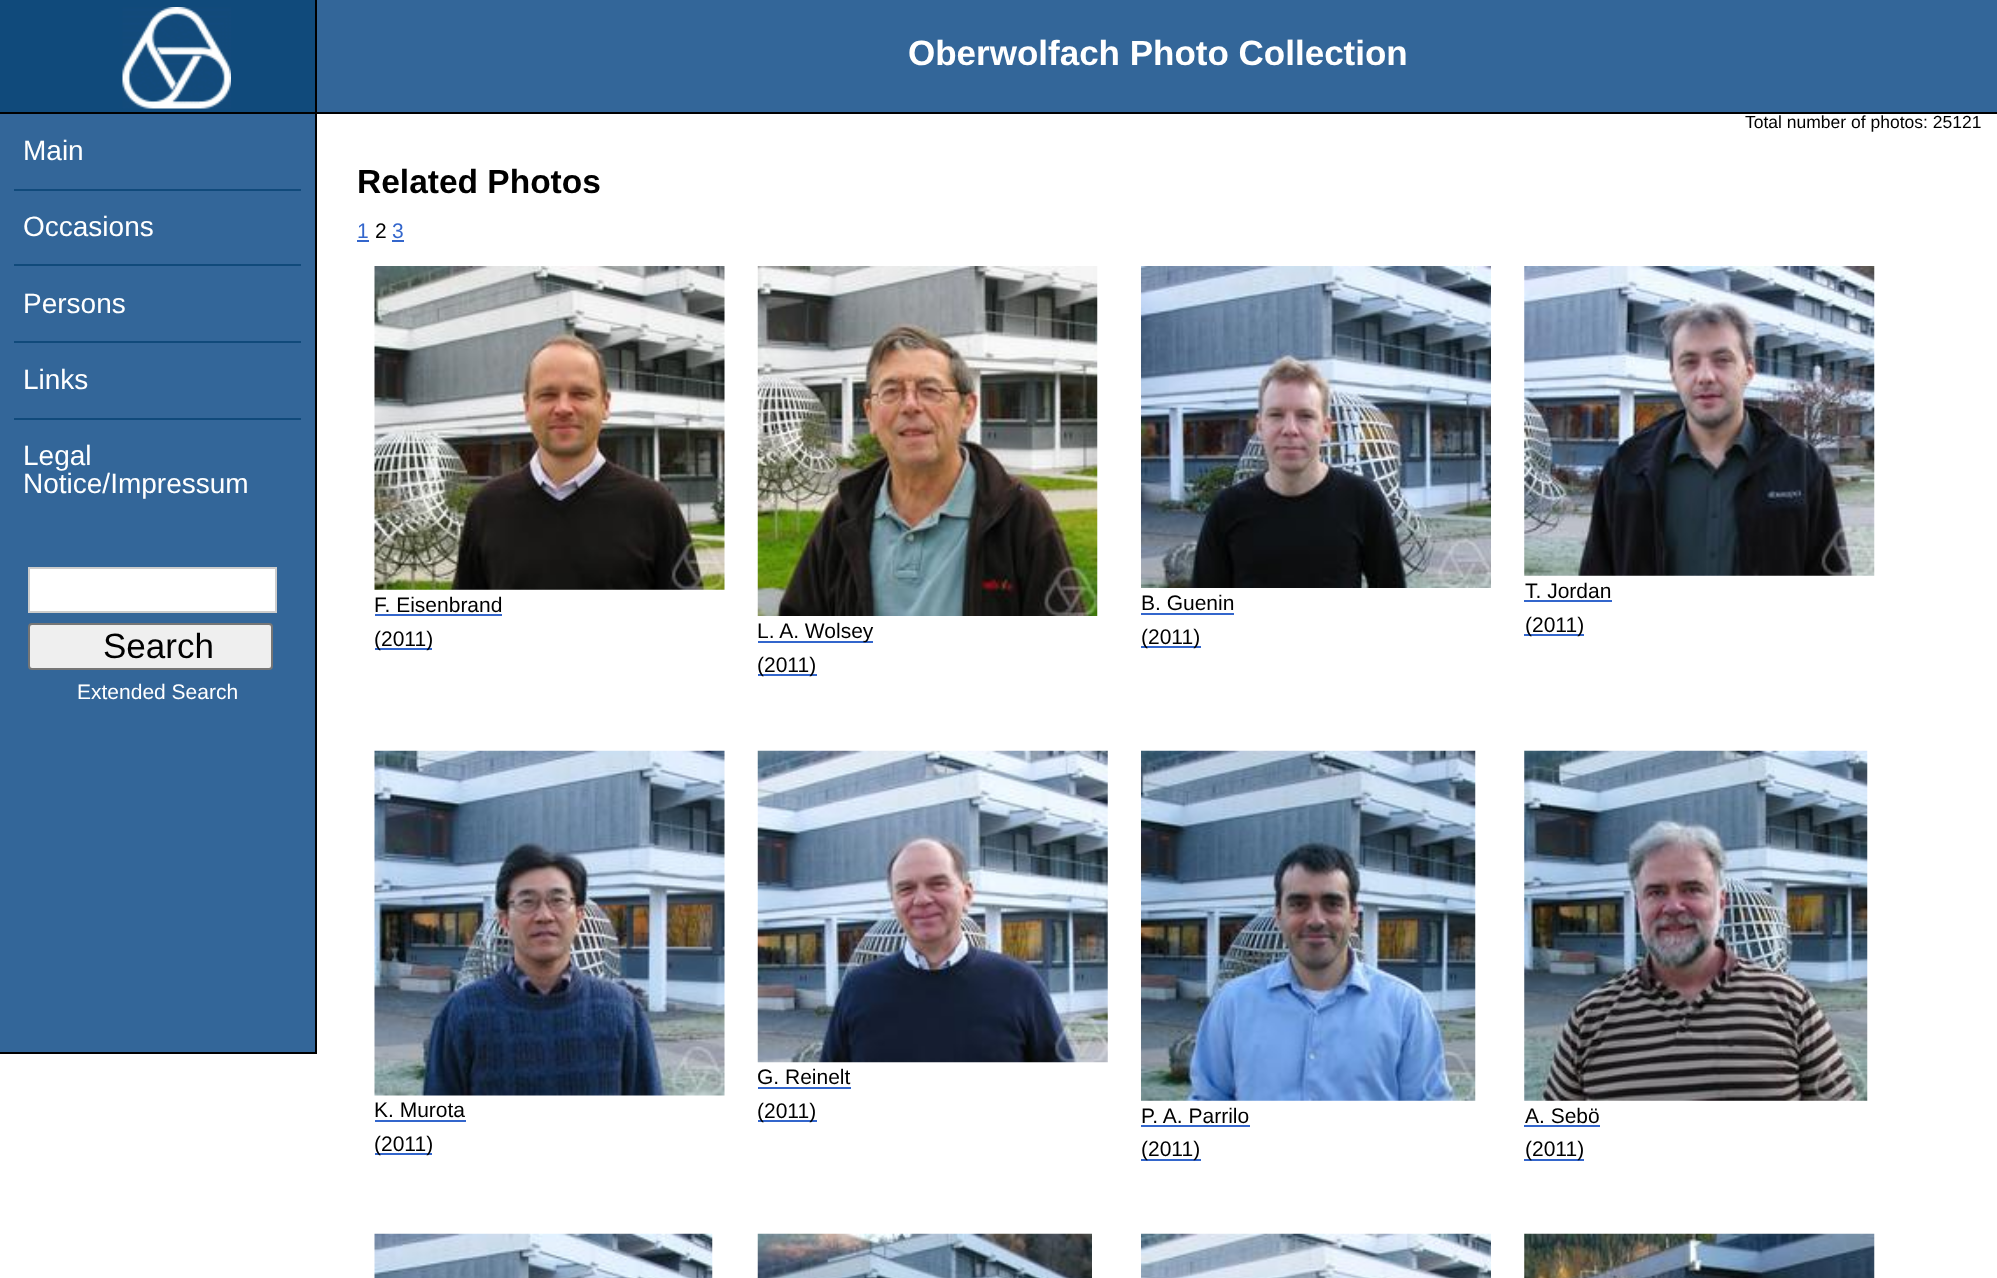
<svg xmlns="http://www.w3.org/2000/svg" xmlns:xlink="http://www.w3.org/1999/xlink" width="1997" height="1278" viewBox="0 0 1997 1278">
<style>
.cls-1{font:bold 35px Liberation Sans;fill:#ffffff}
.cls-2{font:17.5px Liberation Sans;fill:#000000}
.cls-3{font:28px Liberation Sans;fill:#ffffff}
.cls-4{font:35px Liberation Sans;fill:#000000}
.cls-5{font:21px Liberation Sans;fill:#ffffff}
.cls-6{font:bold 33.5px Liberation Sans;fill:#000000}
.cls-7{font:21px Liberation Sans;fill:#3366cc}
.cls-8{font:21px Liberation Sans;fill:#000000}
</style>
<rect width="100%" height="100%" fill="#ffffff"/>
<rect fill="#336699" x="317" y="0" width="1680" height="112"/>
<rect fill="#000000" x="0" y="112" width="1997" height="2"/>
<rect fill="#104a7b" x="0" y="0" width="315" height="112"/>
<rect fill="#000000" x="315" y="0" width="2" height="112"/>
<image xlink:href="image0.png" x="122" y="7" width="109" height="102"/>
<rect fill="#336699" x="0" y="114" width="315" height="938"/>
<rect fill="#000000" x="315" y="114" width="2" height="940"/>
<rect fill="#000000" x="0" y="1052" width="317" height="2"/>
<rect fill="#104a7b" x="14" y="189" width="287" height="2"/>
<rect fill="#104a7b" x="14" y="264" width="287" height="2"/>
<rect fill="#104a7b" x="14" y="341" width="287" height="2"/>
<rect fill="#104a7b" x="14" y="418" width="287" height="2"/>
<rect fill="#ffffff" stroke="#cccccc" stroke-width="2" x="29" y="568" width="247" height="44"/>
<rect fill="#efefef" stroke="#767676" stroke-width="2" x="29" y="624" width="243" height="45" rx="3"/>
<rect fill="#3366cc" x="357" y="240" width="12" height="2"/>
<rect fill="#3366cc" x="392" y="240" width="12" height="2"/>
<image xlink:href="image1.png" x="374" y="266" width="351" height="324"/>
<rect fill="#3366cc" x="375" y="614" width="127" height="2"/>
<rect fill="#3366cc" x="375" y="648" width="57" height="2"/>
<image xlink:href="image2.png" x="757" y="266" width="341" height="350"/>
<rect fill="#3366cc" x="758" y="641" width="115" height="2"/>
<rect fill="#3366cc" x="758" y="674" width="59" height="2"/>
<image xlink:href="image3.png" x="1141" y="266" width="350" height="322"/>
<rect fill="#3366cc" x="1141" y="613" width="93" height="2"/>
<rect fill="#3366cc" x="1141" y="646" width="60" height="2"/>
<image xlink:href="image4.png" x="1524" y="266" width="351" height="310"/>
<rect fill="#3366cc" x="1524" y="600" width="88" height="2"/>
<rect fill="#3366cc" x="1524" y="634" width="60" height="2"/>
<image xlink:href="image5.png" x="757" y="750" width="351" height="313"/>
<rect fill="#3366cc" x="758" y="1087" width="93" height="2"/>
<rect fill="#3366cc" x="758" y="1120" width="59" height="2"/>
<image xlink:href="image6.png" x="374" y="750" width="351" height="346"/>
<rect fill="#3366cc" x="375" y="1120" width="91" height="2"/>
<rect fill="#3366cc" x="375" y="1153" width="57" height="2"/>
<image xlink:href="image7.png" x="1141" y="750" width="335" height="351"/>
<rect fill="#3366cc" x="1141" y="1125" width="109" height="2"/>
<rect fill="#3366cc" x="1141" y="1159" width="60" height="2"/>
<image xlink:href="image8.png" x="1524" y="750" width="344" height="351"/>
<rect fill="#3366cc" x="1524" y="1125" width="76" height="2"/>
<rect fill="#3366cc" x="1524" y="1159" width="60" height="2"/>
<image xlink:href="image9.png" x="374" y="1233" width="339" height="45"/>
<image xlink:href="image10.png" x="757" y="1233" width="335" height="45"/>
<image xlink:href="image11.png" x="1141" y="1233" width="350" height="45"/>
<image xlink:href="image12.png" x="1524" y="1233" width="351" height="45"/>
<text class="cls-1" x="908" y="65">Oberwolfach Photo Collection</text>
<text class="cls-2" x="1745" y="128">Total number of photos: 25121</text>
<text class="cls-3" x="23" y="160">Main</text>
<text class="cls-3" x="23" y="236">Occasions</text>
<text class="cls-3" x="23" y="313">Persons</text>
<text class="cls-3" x="23" y="389">Links</text>
<text class="cls-3"><tspan x="23" y="465">Legal</tspan><tspan x="23" y="493">Notice/Impressum</tspan></text>
<text class="cls-4" x="103" y="658">Search</text>
<text class="cls-5" x="77" y="699">Extended Search</text>
<text class="cls-6" x="357" y="193">Related Photos</text>
<text class="cls-7" x="357" y="238">1</text>
<text class="cls-8" x="375" y="238">2</text>
<text class="cls-7" x="392" y="238">3</text>
<text class="cls-8"><tspan x="374" y="612">F. Eisenbrand</tspan><tspan x="374" y="646">(2011)</tspan></text>
<text class="cls-8"><tspan x="757" y="638">L. A. Wolsey</tspan><tspan x="757" y="672">(2011)</tspan></text>
<text class="cls-8"><tspan x="1141" y="610">B. Guenin</tspan><tspan x="1141" y="644">(2011)</tspan></text>
<text class="cls-8"><tspan x="1525" y="598">T. Jordan</tspan><tspan x="1525" y="632">(2011)</tspan></text>
<text class="cls-8"><tspan x="757" y="1084">G. Reinelt</tspan><tspan x="757" y="1118">(2011)</tspan></text>
<text class="cls-8"><tspan x="374" y="1117">K. Murota</tspan><tspan x="374" y="1151">(2011)</tspan></text>
<text class="cls-8"><tspan x="1141" y="1123">P. A. Parrilo</tspan><tspan x="1141" y="1156">(2011)</tspan></text>
<text class="cls-8"><tspan x="1525" y="1123">A. Sebö</tspan><tspan x="1525" y="1156">(2011)</tspan></text>
</svg>
